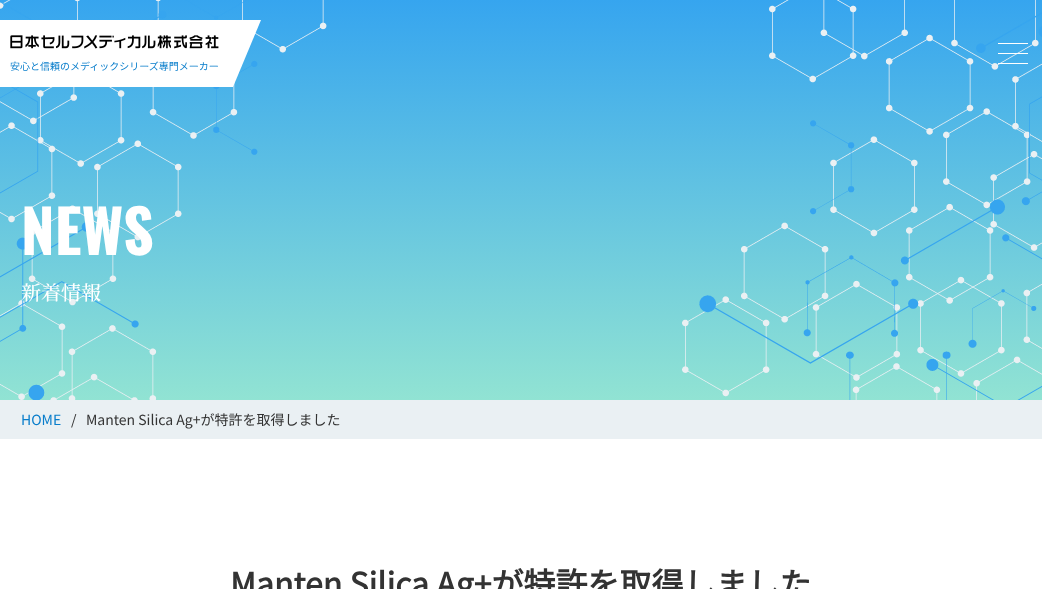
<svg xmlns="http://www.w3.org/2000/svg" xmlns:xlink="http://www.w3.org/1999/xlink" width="1042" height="589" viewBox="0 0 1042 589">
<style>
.cls-1{font:100 10px Noto Sans JP;fill:#087dcb}
.cls-2{font:bold 60px Oswald;fill:#ffffff}
.cls-3{font:500 20px Noto Serif JP;fill:#ffffff}
.cls-4{font:100 14px Noto Sans JP;fill:#087dcb}
.cls-5{font:100 14px Noto Sans JP;fill:#333333}
.cls-6{font:bold 32px Noto Sans JP;fill:#333333}
</style>
<rect width="100%" height="100%" fill="#ffffff"/>
<image xlink:href="image1.png" x="0" y="0" width="1042" height="400"/>
<rect fill="#ffffff" x="998" y="43" width="30" height="1"/>
<rect fill="#ffffff" x="998" y="63" width="30" height="1"/>
<rect fill="#ffffff" x="998" y="53" width="30" height="1"/>
<rect fill="#ffffff" x="0" y="20" width="225" height="67"/>
<path fill="#ffffff" d="M225 20H261L233 87H197Z"/>
<image xlink:href="image0.png" x="10" y="35" width="209" height="14"/>
<rect fill="#eaf0f3" x="0" y="400" width="1042" height="39"/>
<text class="cls-1" x="10" y="70">安心と信頼のメディックシリーズ専門メーカー</text>
<text class="cls-2" x="21" y="255">NEWS</text>
<text class="cls-3" x="21" y="300">新着情報</text>
<text class="cls-4" x="21" y="425">HOME</text>
<text class="cls-5" x="71" y="425">/</text>
<text class="cls-5" x="86" y="425">Manten Silica Ag+が特許を取得しました</text>
<text class="cls-6" x="230" y="596">Manten Silica Ag+が特許を取得しました</text>
</svg>
